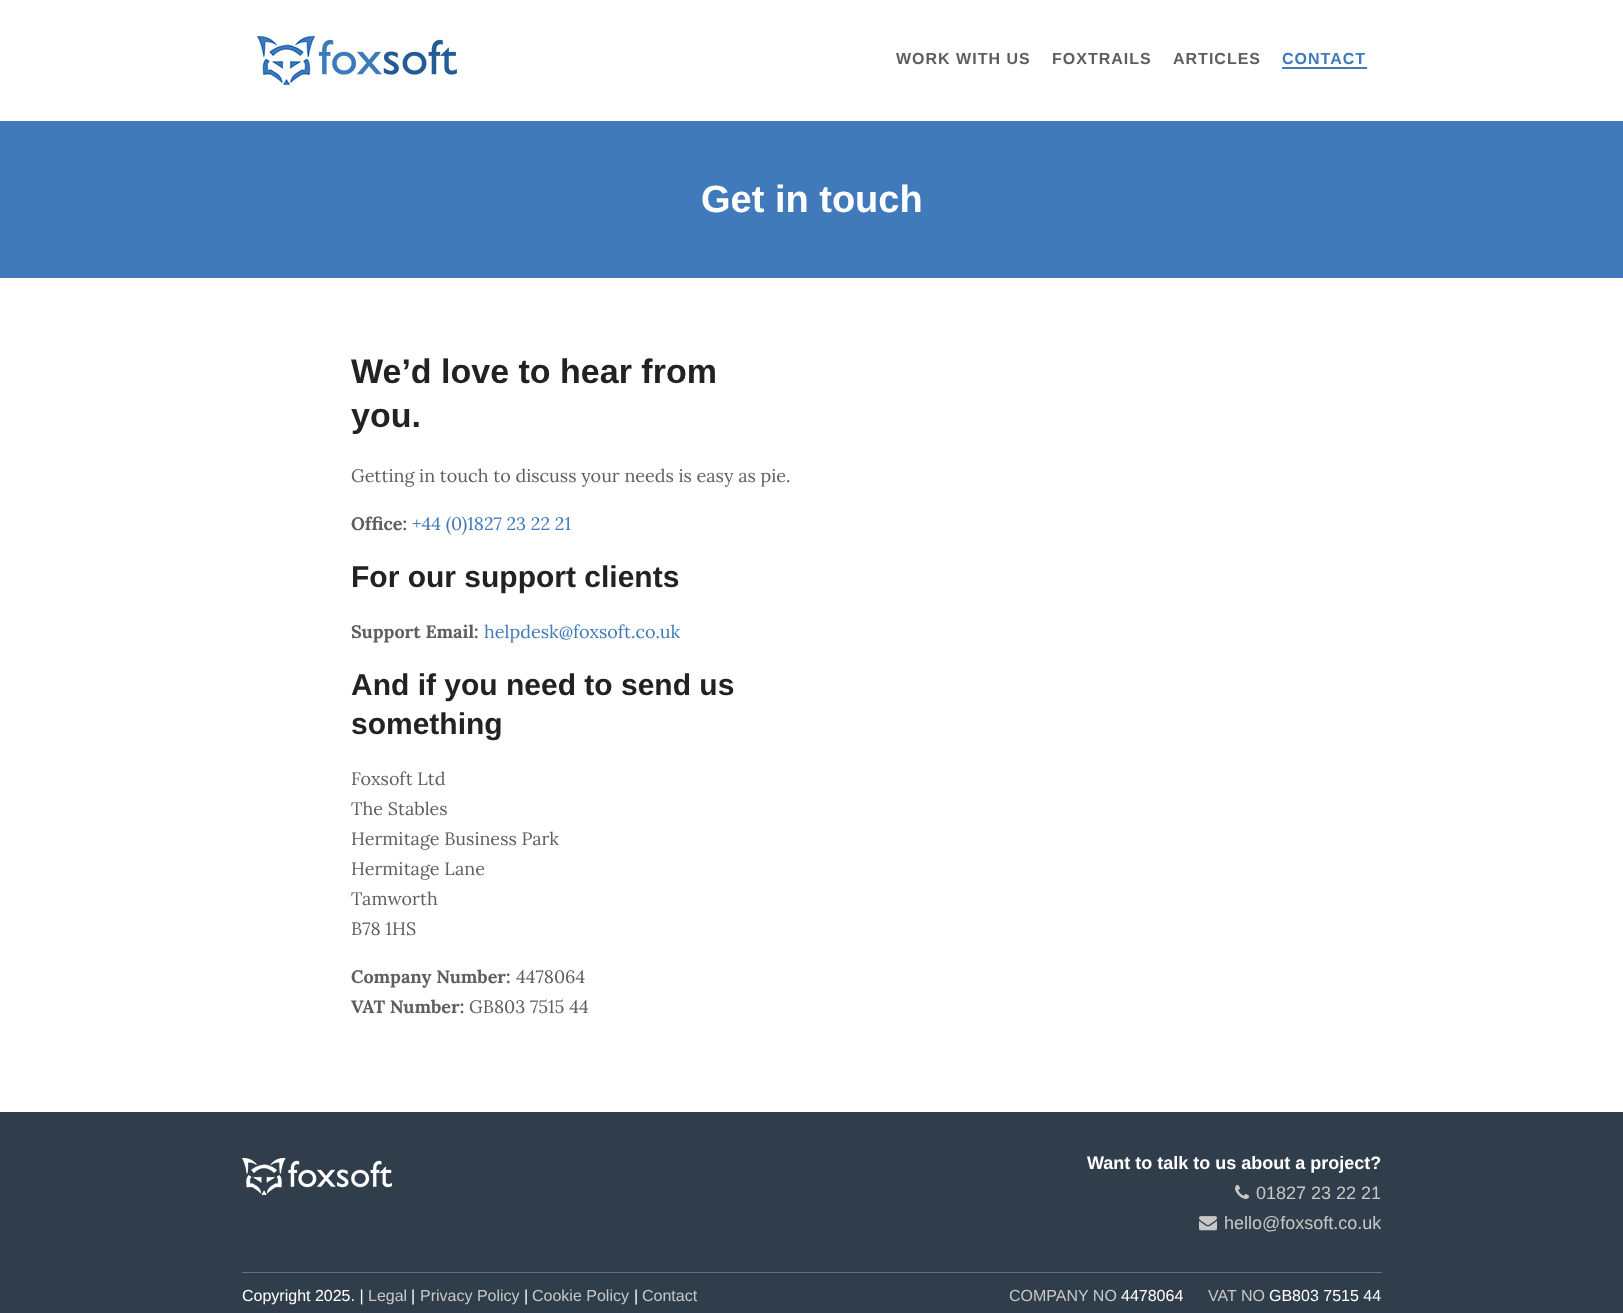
<svg xmlns="http://www.w3.org/2000/svg" xmlns:xlink="http://www.w3.org/1999/xlink" width="1623" height="1313" viewBox="0 0 1623 1313">
<style>
.cls-1{font:bold 16px Liberation Sans;letter-spacing:1px;fill:#5e5e5e}
.cls-2{font:bold 16px Liberation Sans;letter-spacing:1px;fill:#407abb}
.cls-3{font:bold 38px Liberation Sans;fill:#ffffff}
.cls-4{font:bold 34px Liberation Sans;fill:#222222}
.cls-5{font:18px Lora;fill:#5e5e5e}
.cls-6{font:bold 18px Lora;fill:#5e5e5e}
.cls-7{font:18px Lora;fill:#407abb}
.cls-8{font:bold 30px Liberation Sans;fill:#222222}
.cls-9{font:bold 18px Liberation Sans;fill:#ffffff}
.cls-10{font:18px Liberation Sans;fill:#c7c7c7}
.cls-11{font:16px Liberation Sans;fill:#ffffff}
.cls-12{font:16px Liberation Sans;fill:#c7c7c7}
</style>
<rect width="100%" height="100%" fill="#ffffff"/>
<image xlink:href="image0.png" x="257" y="36" width="200" height="49"/>
<rect fill="#407abb" x="1282" y="67" width="85" height="2"/>
<rect fill="#407abb" x="0" y="121" width="1623" height="157"/>
<rect fill="#303e4c" x="0" y="1112" width="1623" height="201"/>
<image xlink:href="image1.png" x="242" y="1158" width="150" height="37"/>
<image xlink:href="image2.png" x="1235" y="1184" width="15" height="15"/>
<image xlink:href="image3.png" x="1199" y="1216" width="18" height="15"/>
<rect fill="#57718b" x="242" y="1272" width="1140" height="1"/>
<text class="cls-1" x="896" y="64">WORK WITH US</text>
<text class="cls-1" x="1052" y="64">FOXTRAILS</text>
<text class="cls-1" x="1173" y="64">ARTICLES</text>
<text class="cls-2" x="1282" y="64">CONTACT</text>
<text class="cls-3" x="701" y="212">Get in touch</text>
<text class="cls-4"><tspan x="351" y="383">We’d love to hear from</tspan><tspan x="351" y="427">you.</tspan></text>
<text class="cls-5" x="351" y="482">Getting in touch to discuss your needs is easy as pie.</text>
<text class="cls-6" x="351" y="530">Office:</text>
<text class="cls-7" x="412" y="530">+44 (0)1827 23 22 21</text>
<text class="cls-8" x="351" y="587">For our support clients</text>
<text class="cls-6" x="351" y="638">Support Email:</text>
<text class="cls-7" x="484" y="638">helpdesk@foxsoft.co.uk</text>
<text class="cls-8"><tspan x="351" y="695">And if you need to send us</tspan><tspan x="351" y="734">something</tspan></text>
<text class="cls-5"><tspan x="351" y="785">Foxsoft Ltd</tspan><tspan x="351" y="815">The Stables</tspan><tspan x="351" y="845">Hermitage Business Park</tspan><tspan x="351" y="875">Hermitage Lane</tspan><tspan x="351" y="905">Tamworth</tspan><tspan x="351" y="935">B78 1HS</tspan></text>
<text class="cls-6" x="351" y="983">Company Number:</text>
<text class="cls-5" x="516" y="983">4478064</text>
<text class="cls-6" x="351" y="1013">VAT Number:</text>
<text class="cls-5" x="469" y="1013">GB803 7515 44</text>
<text class="cls-9" x="1087" y="1169">Want to talk to us about a project?</text>
<text class="cls-10" x="1256" y="1199">01827 23 22 21</text>
<text class="cls-10" x="1224" y="1229">hello@foxsoft.co.uk</text>
<text class="cls-11" x="242" y="1301">Copyright 2025. |</text>
<text class="cls-12" x="368" y="1301">Legal</text>
<text class="cls-11" x="411" y="1301">|</text>
<text class="cls-12" x="420" y="1301">Privacy Policy</text>
<text class="cls-11" x="524" y="1301">|</text>
<text class="cls-12" x="532" y="1301">Cookie Policy</text>
<text class="cls-11" x="634" y="1301">|</text>
<text class="cls-12" x="642" y="1301">Contact</text>
<text class="cls-12" x="1009" y="1301">COMPANY NO</text>
<text class="cls-11" x="1121" y="1301">4478064</text>
<text class="cls-12" x="1208" y="1301">VAT NO</text>
<text class="cls-11" x="1269" y="1301">GB803 7515 44</text>
</svg>
